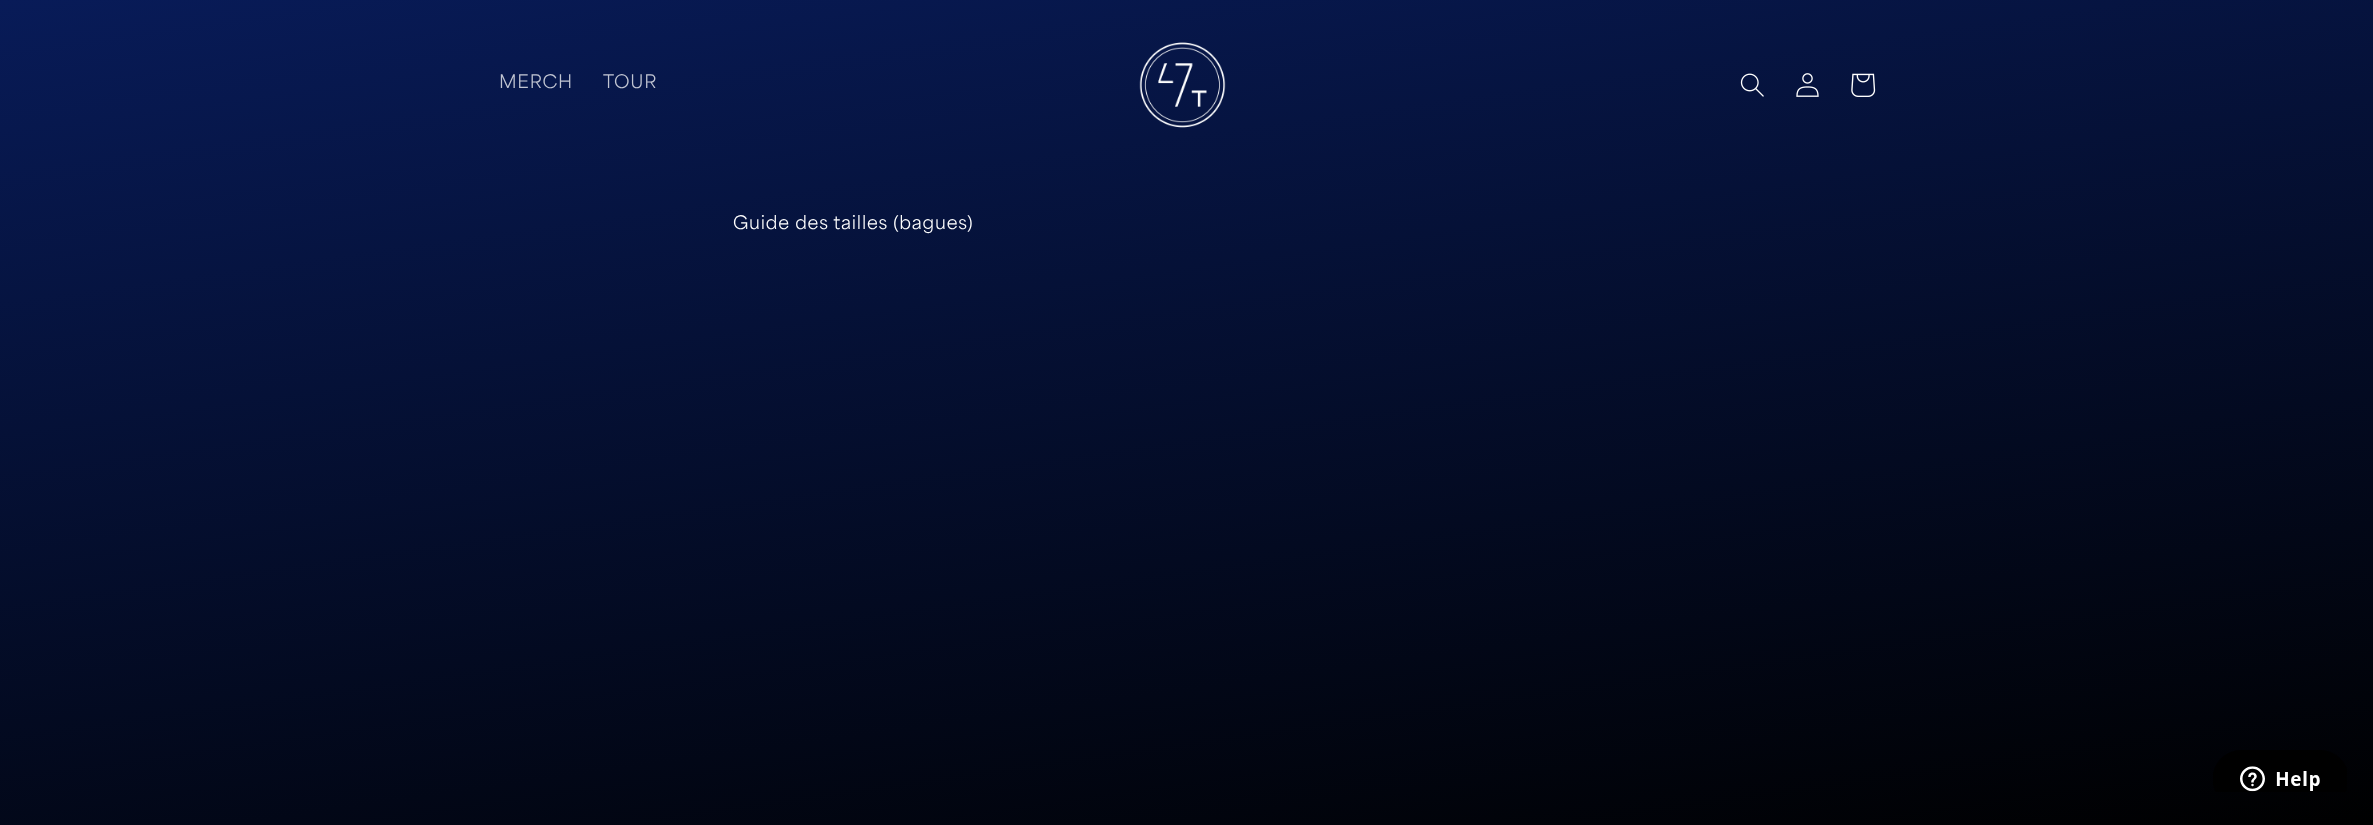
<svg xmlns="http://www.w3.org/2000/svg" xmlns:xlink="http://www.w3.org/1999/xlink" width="2373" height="825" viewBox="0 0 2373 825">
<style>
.cls-1{font:17.5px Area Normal;letter-spacing:0.75px;fill:#c1c5d2}
.cls-2{font:17.5px Area Normal;letter-spacing:0.75px;fill:#ffffff}
</style>
<defs>
<linearGradient id="g1" gradientUnits="userSpaceOnUse" x1="1267" y1="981" x2="1107" y2="-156"><stop offset="0" stop-color="#000000"/><stop offset="1" stop-color="#081b58"/></linearGradient>
</defs>
<rect width="100%" height="100%" fill="#ffffff"/>
<rect fill="url(#g1)" x="0" y="0" width="2373" height="825"/>
<image xlink:href="image0.png" x="1139" y="42" width="87" height="86"/>
<image xlink:href="image1.png" x="1740" y="73" width="24" height="24"/>
<image xlink:href="image2.png" x="1796" y="73" width="23" height="24"/>
<image xlink:href="image3.png" x="1851" y="73" width="25" height="24"/>
<image xlink:href="image4.png" x="2213" y="750" width="134" height="42"/>
<text class="cls-1" x="499" y="88">MERCH</text>
<text class="cls-1" x="603" y="88">TOUR</text>
<text class="cls-2" x="733" y="229">Guide des tailles (bagues)</text>
</svg>
